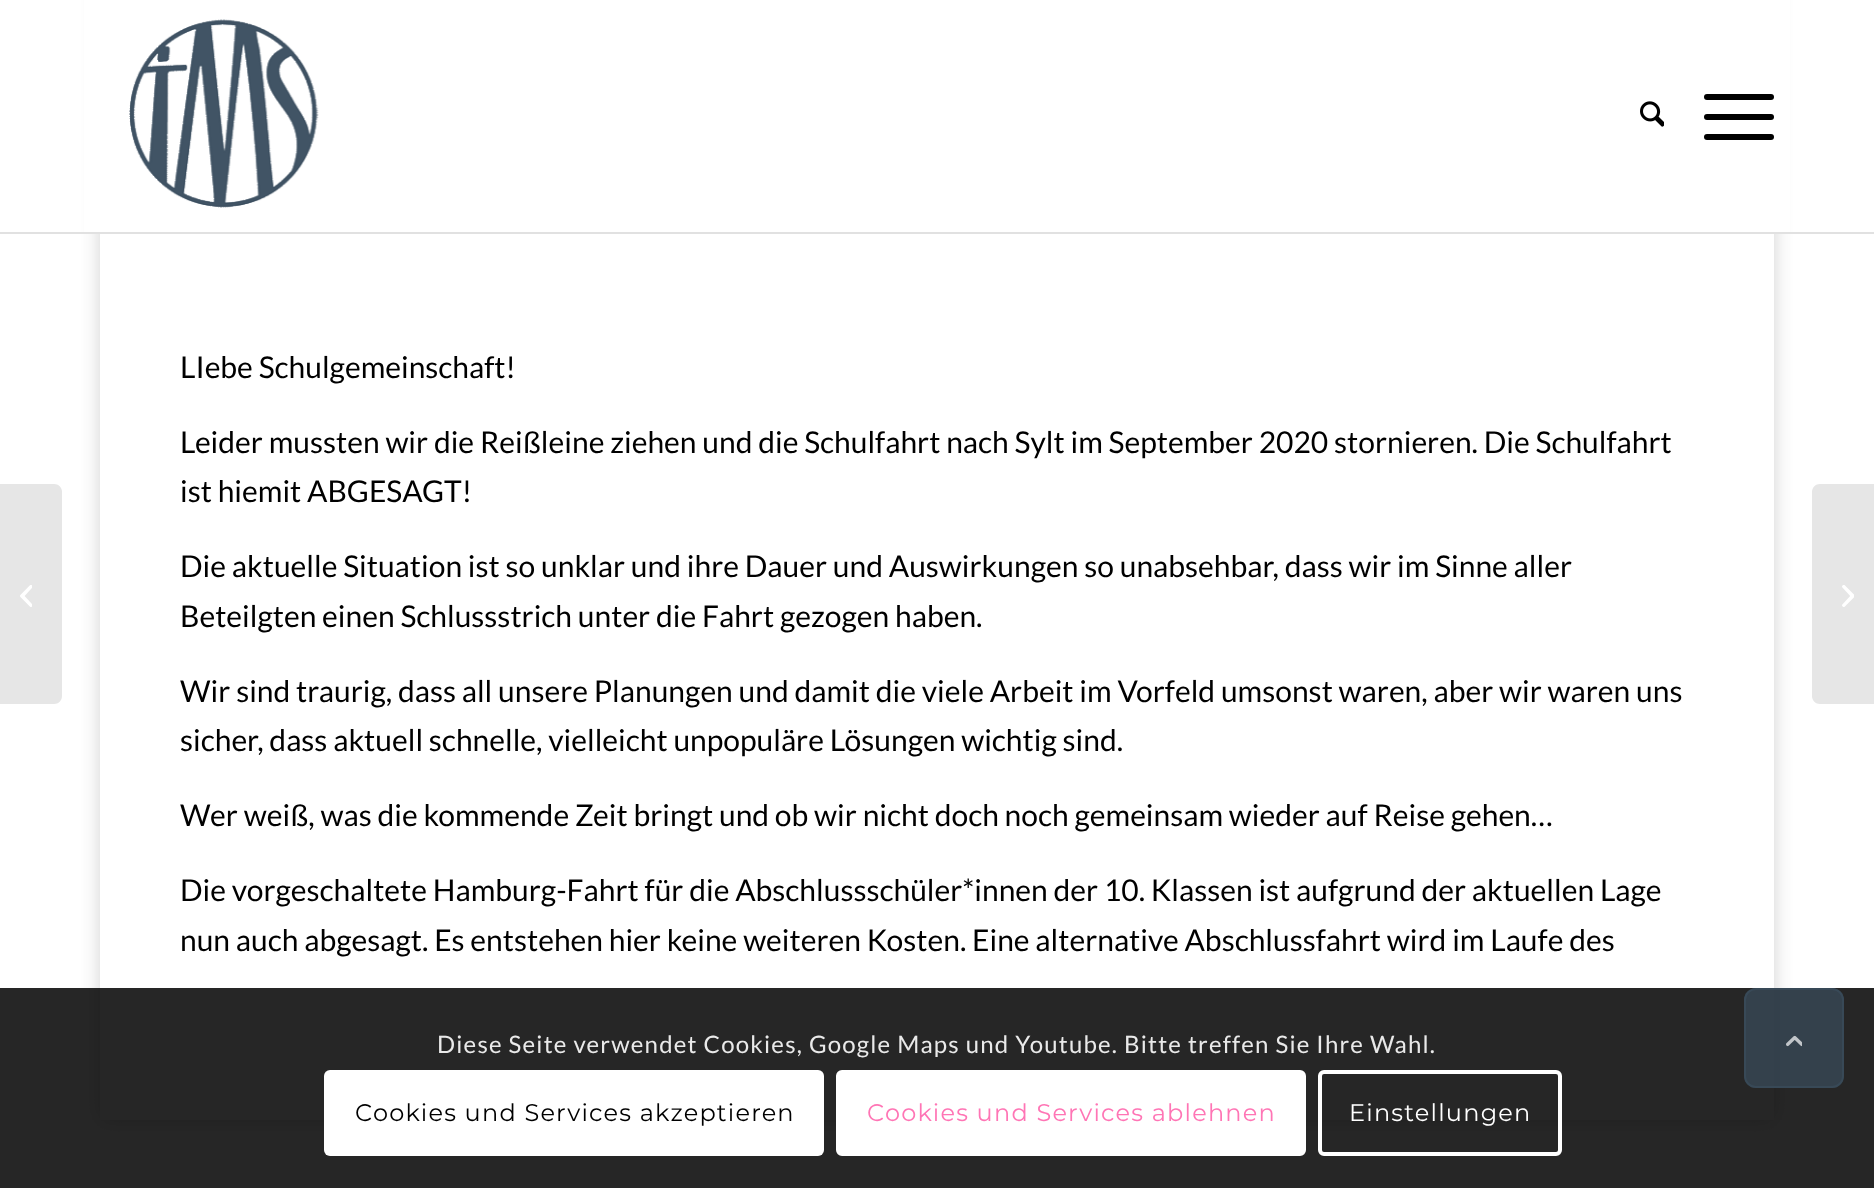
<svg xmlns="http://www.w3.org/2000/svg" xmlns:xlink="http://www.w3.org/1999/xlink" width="1874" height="1188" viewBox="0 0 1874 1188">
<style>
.cls-1{font:30px Lato;fill:#000000}
.cls-2{font:24px Lato;letter-spacing:1.2px;fill:#e9e9e9}
.cls-3{font:24px Montserrat;letter-spacing:1.2px;fill:#000000}
.cls-4{font:24px Montserrat;letter-spacing:1.2px;fill:#ff75b5}
.cls-5{font:24px Montserrat;letter-spacing:1.2px;fill:#ffffff}
</style>
<defs>
<clipPath id="clip1"><path d="M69 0H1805V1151H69ZM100-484H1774V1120H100Z" clip-rule="evenodd"/></clipPath>
</defs>
<rect width="100%" height="100%" fill="#ffffff"/>
<g clip-path="url(#clip1)">
<rect fill="#d1d1d1" filter="blur(10px)" x="100" y="-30" width="1674" height="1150"/>
</g>
<rect fill="#ffffff" x="84" y="0" width="1706" height="232"/>
<rect fill="#e1e1e1" x="0" y="232" width="1874" height="2"/>
<image xlink:href="image0.png" x="129" y="19" width="190" height="189"/>
<image xlink:href="image1.png" x="1640" y="101" width="24" height="26"/>
<rect fill="#000000" x="1704" y="114" width="70" height="6" rx="3"/>
<rect fill="#000000" x="1704" y="94" width="70" height="6" rx="3"/>
<rect fill="#000000" x="1704" y="134" width="70" height="6" rx="3"/>
<path fill="#e6e6e6" d="M0 484H54C58.5 484 62 487.5 62 492V696C62 700.5 58.5 704 54 704H0Z"/>
<image xlink:href="image2.png" x="20" y="585" width="12" height="22"/>
<path fill="#e6e6e6" d="M1820 484H1874V704H1820C1815.5 704 1812 700.5 1812 696V492C1812 487.5 1815.5 484 1820 484Z"/>
<image xlink:href="image3.png" x="1842" y="585" width="12" height="22"/>
<rect fill="#000000" fill-opacity="0.85" x="0" y="988" width="1874" height="200"/>
<rect fill="#ffffff" x="324" y="1070" width="500" height="86" rx="6"/>
<rect fill="#ffffff" stroke="#ffffff" stroke-width="4" x="838" y="1072" width="466" height="82" rx="4"/>
<rect fill="none" stroke="#ffffff" stroke-width="4" x="1320" y="1072" width="240" height="82" rx="4"/>
<rect fill="#3a4d5c" fill-opacity="0.7" x="1744" y="988" width="100" height="100" rx="12"/>
<rect fill="none" stroke="#3a4d5c" stroke-opacity="0.7" stroke-width="2" x="1745" y="989" width="98" height="98" rx="11"/>
<image xlink:href="image4.png" x="1786" y="1035" width="16" height="12"/>
<text class="cls-1" x="180" y="378">LIebe Schulgemeinschaft!</text>
<text class="cls-1"><tspan x="180" y="453">Leider mussten wir die Reißleine ziehen und die Schulfahrt nach Sylt im September 2020 stornieren. Die Schulfahrt</tspan><tspan x="180" y="502">ist hiemit ABGESAGT!</tspan></text>
<text class="cls-1"><tspan x="180" y="577">Die aktuelle Situation ist so unklar und ihre Dauer und Auswirkungen so unabsehbar, dass wir im Sinne aller</tspan><tspan x="180" y="627">Beteilgten einen Schlussstrich unter die Fahrt gezogen haben.</tspan></text>
<text class="cls-1"><tspan x="180" y="702">Wir sind traurig, dass all unsere Planungen und damit die viele Arbeit im Vorfeld umsonst waren, aber wir waren uns</tspan><tspan x="180" y="751">sicher, dass aktuell schnelle, vielleicht unpopuläre Lösungen wichtig sind.</tspan></text>
<text class="cls-1" x="180" y="826">Wer weiß, was die kommende Zeit bringt und ob wir nicht doch noch gemeinsam wieder auf Reise gehen…</text>
<text class="cls-1"><tspan x="180" y="901">Die vorgeschaltete Hamburg-Fahrt für die Abschlussschüler*innen der 10. Klassen ist aufgrund der aktuellen Lage</tspan><tspan x="180" y="951">nun auch abgesagt. Es entstehen hier keine weiteren Kosten. Eine alternative Abschlussfahrt wird im Laufe des</tspan></text>
<text class="cls-2" x="437" y="1053">Diese Seite verwendet Cookies, Google Maps und Youtube. Bitte treffen Sie Ihre Wahl.</text>
<text class="cls-3" x="355" y="1121">Cookies und Services akzeptieren</text>
<text class="cls-4" x="867" y="1121">Cookies und Services ablehnen</text>
<text class="cls-5" x="1349" y="1121">Einstellungen</text>
</svg>
